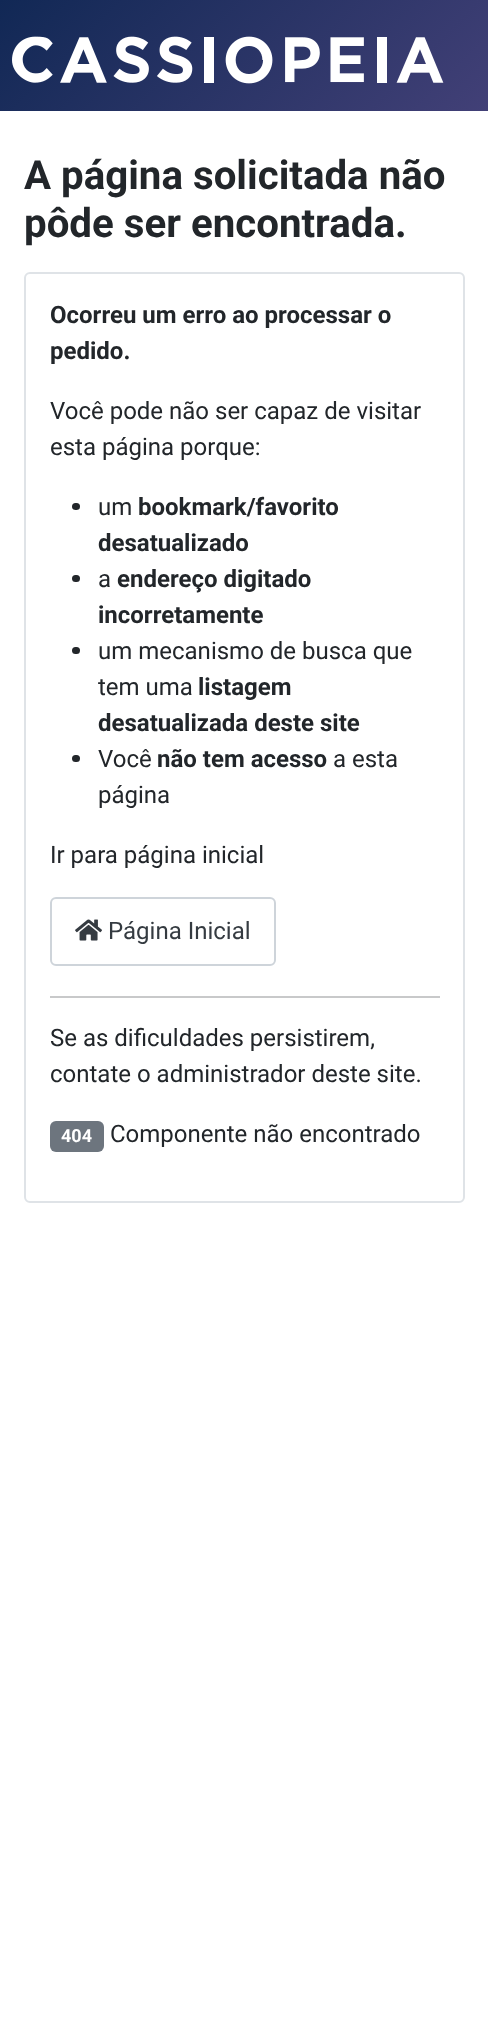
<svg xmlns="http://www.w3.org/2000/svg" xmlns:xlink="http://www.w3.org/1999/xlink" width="488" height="2020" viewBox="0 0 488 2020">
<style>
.cls-1{font:bold 40.25px Roboto;fill:#22262a}
.cls-2{font:bold 24px Roboto;fill:#22262a}
.cls-3{font:24px Roboto;fill:#22262a}
.cls-4{font:24px Roboto;fill:#353b41}
.cls-5{font:bold 18px Roboto;fill:#ffffff}
</style>
<defs>
<linearGradient id="g1" gradientUnits="userSpaceOnUse" x1="94" y1="-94" x2="395" y2="206"><stop offset="0" stop-color="#112855"/><stop offset="1" stop-color="#424077"/></linearGradient>
</defs>
<rect width="100%" height="100%" fill="#ffffff"/>
<rect fill="url(#g1)" x="0" y="0" width="488" height="111"/>
<image xlink:href="image0.png" x="12" y="36" width="432" height="48"/>
<rect fill="none" stroke="#dfe3e7" stroke-width="2" x="25" y="273" width="439" height="929" rx="5"/>
<rect fill="#22262a" x="72" y="503" width="8" height="7" rx="3.5"/>
<rect fill="#22262a" x="72" y="575" width="8" height="7" rx="3.5"/>
<rect fill="#22262a" x="72" y="647" width="8" height="7" rx="3.5"/>
<rect fill="#22262a" x="72" y="755" width="8" height="7" rx="3.5"/>
<rect fill="none" stroke="#ced4da" stroke-width="2" x="51" y="898" width="224" height="67" rx="5"/>
<image xlink:href="image1.png" x="75" y="919" width="27" height="22"/>
<rect fill="#c8c9ca" x="50" y="996" width="390" height="2"/>
<rect fill="#6d757e" x="50" y="1121" width="54" height="31" rx="6"/>
<text class="cls-1"><tspan x="24" y="189">A página solicitada não</tspan><tspan x="24" y="237">pôde ser encontrada.</tspan></text>
<text class="cls-2"><tspan x="50" y="323">Ocorreu um erro ao processar o</tspan><tspan x="50" y="359">pedido.</tspan></text>
<text class="cls-3"><tspan x="50" y="419">Você pode não ser capaz de visitar</tspan><tspan x="50" y="455">esta página porque:</tspan></text>
<text class="cls-3" x="98" y="515">um</text>
<text class="cls-2" x="138" y="515">bookmark/favorito</text>
<text class="cls-2" x="98" y="551">desatualizado</text>
<text class="cls-3" x="98" y="587">a</text>
<text class="cls-2" x="117" y="587">endereço digitado</text>
<text class="cls-2" x="98" y="623">incorretamente</text>
<text class="cls-3"><tspan x="98" y="659">um mecanismo de busca que</tspan><tspan x="98" y="695">tem uma</tspan></text>
<text class="cls-2" x="198" y="695">listagem</text>
<text class="cls-2" x="98" y="731">desatualizada deste site</text>
<text class="cls-3" x="98" y="767">Você</text>
<text class="cls-2" x="157" y="767">não tem acesso</text>
<text class="cls-3" x="333" y="767">a esta</text>
<text class="cls-3" x="98" y="803">página</text>
<text class="cls-3" x="50" y="863">Ir para página inicial</text>
<text class="cls-4" x="108" y="939">Página Inicial</text>
<text class="cls-3"><tspan x="50" y="1046">Se as dificuldades persistirem,</tspan><tspan x="50" y="1082">contate o administrador deste site.</tspan></text>
<text class="cls-5" x="61" y="1142">404</text>
<text class="cls-3" x="110" y="1142">Componente não encontrado</text>
</svg>
